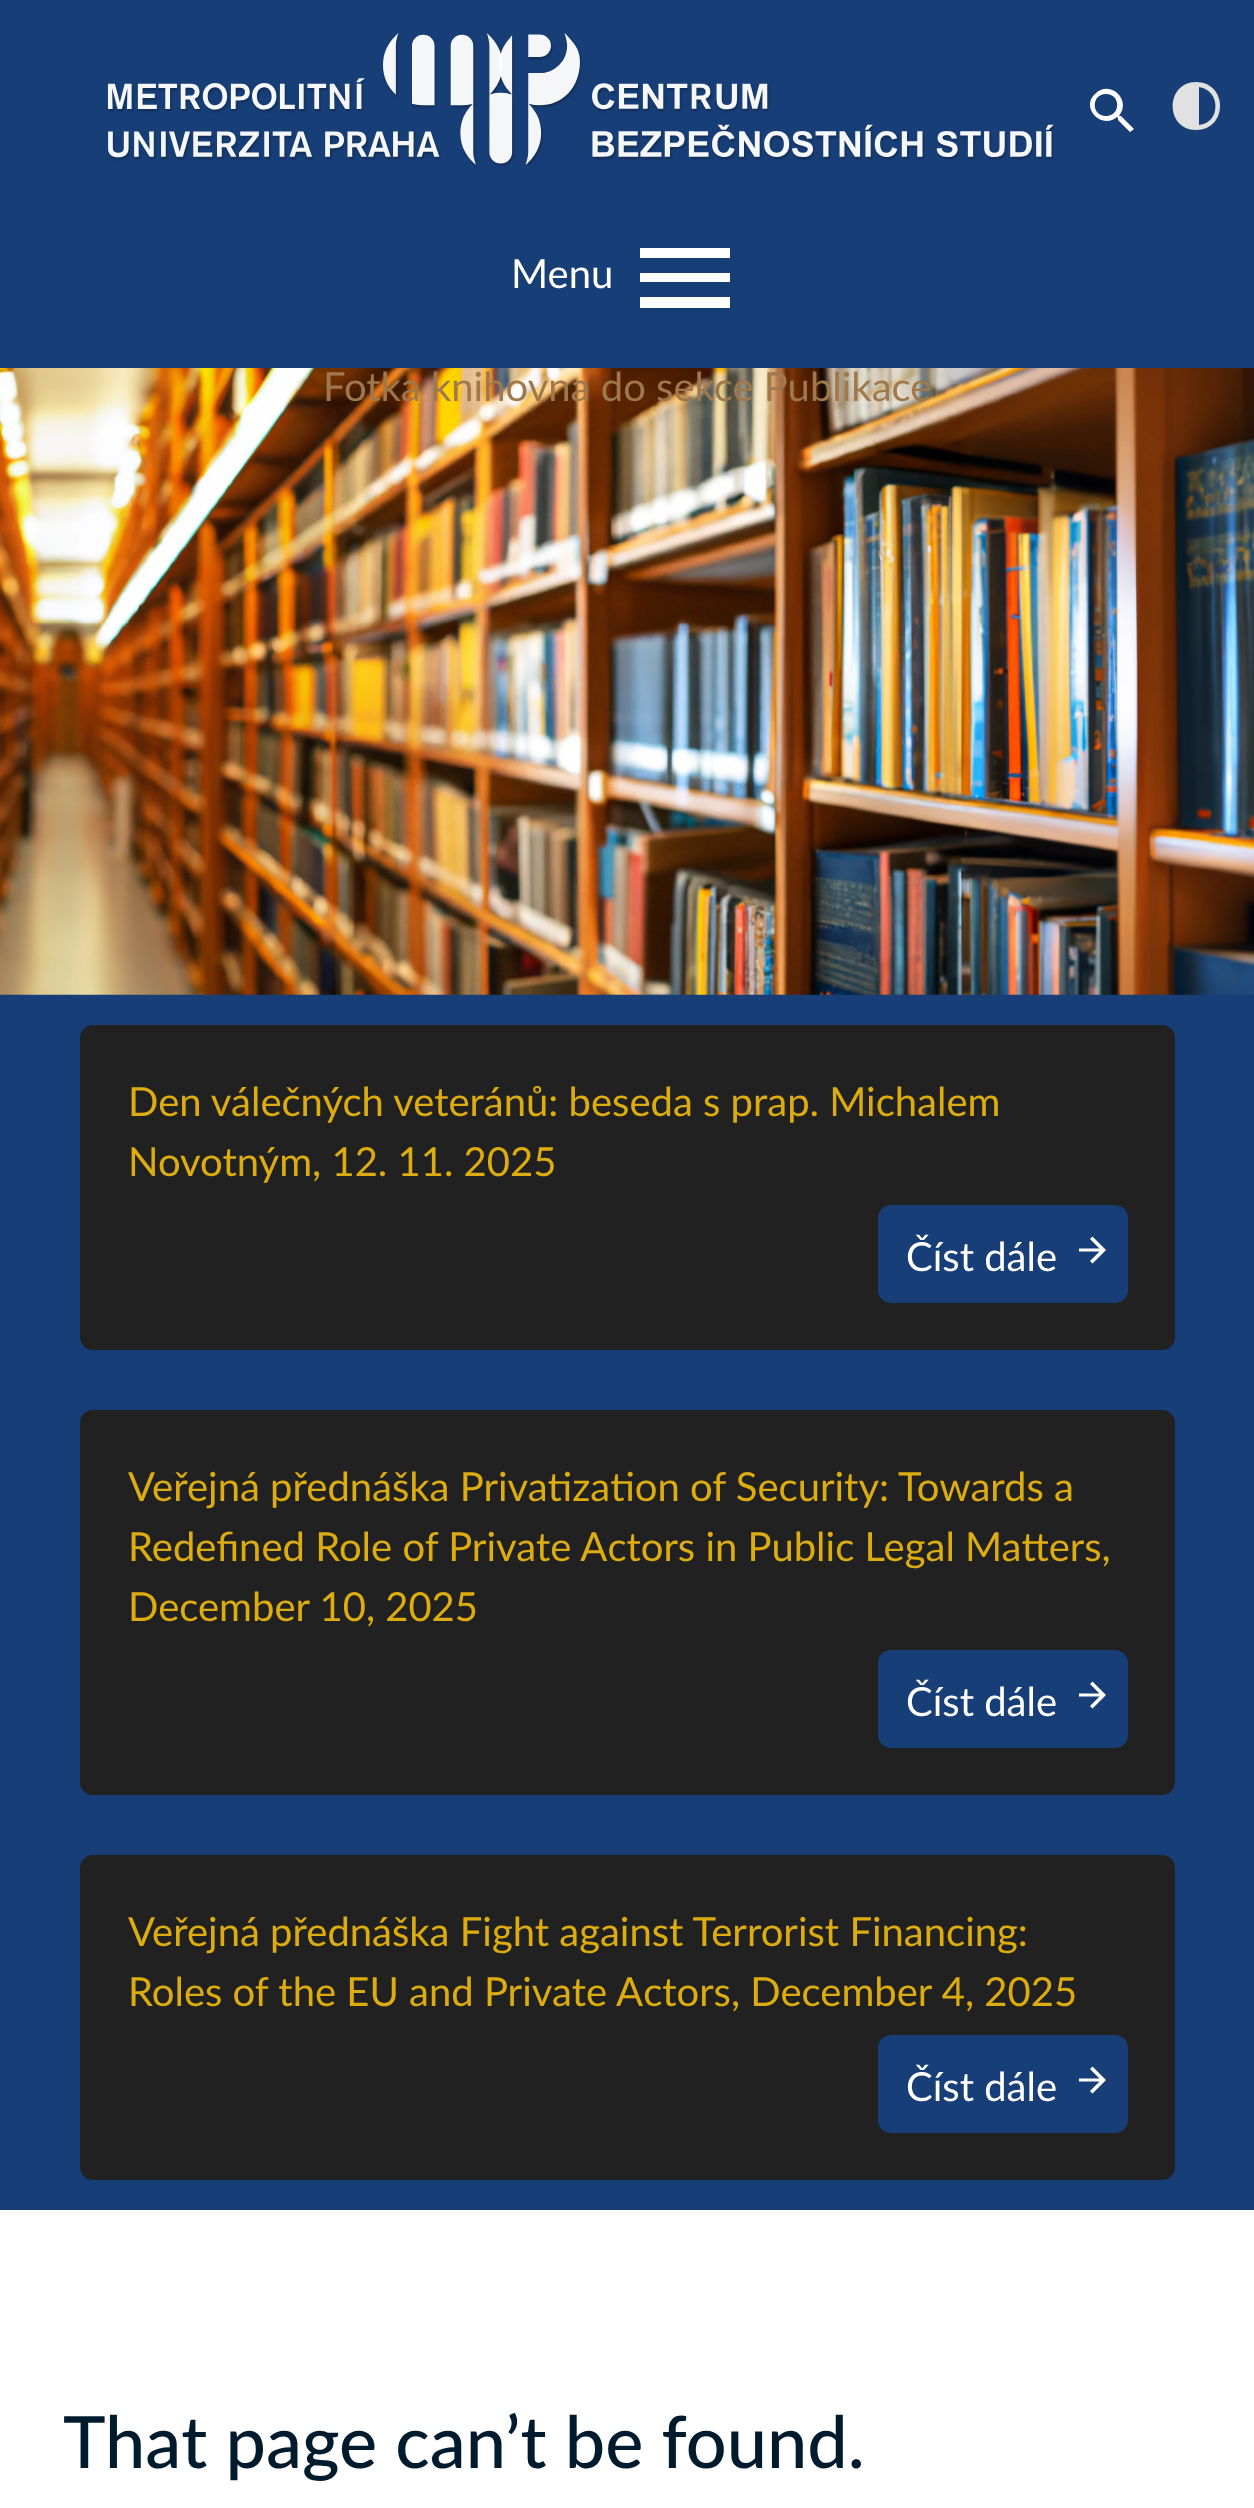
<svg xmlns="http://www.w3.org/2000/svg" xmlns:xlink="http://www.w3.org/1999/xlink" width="1254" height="2508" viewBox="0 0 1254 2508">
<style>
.cls-1{font:40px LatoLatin;fill:#ffffff}
.cls-2{font:40px LatoLatin;fill:#9f784c}
.cls-3{font:40px LatoLatin;fill:#ddad10}
.cls-4{font:500 72px LatoLatin;fill:#001b2e}
</style>
<rect width="100%" height="100%" fill="#173e76"/>
<image xlink:href="image0.png" x="107" y="33" width="948" height="134"/>
<path fill="#ffffff" d="M1121 116H1119C1132 100 1110 79 1095 94C1080 108 1102 130 1117 117L1118 118V120L1130 132L1134 129ZM1106 116C1091 116 1091 94 1106 94C1121 94 1121 116 1106 116Z"/>
<path fill="#e1e1e1" d="M1196 130C1228 130 1228 82 1196 82C1165 82 1165 130 1196 130ZM1199 87C1221 90 1221 123 1199 125Z"/>
<path fill="#ffffff" d="M640 248H730V258H640ZM640 282V273H730V282ZM640 308V297H730V308Z"/>
<image xlink:href="image1.png" x="0" y="368" width="1254" height="627"/>
<rect fill="#212121" x="80" y="1025" width="1095" height="325" rx="13"/>
<rect fill="#173e76" x="878" y="1205" width="250" height="98" rx="13"/>
<path fill="#ffffff" d="M1092.5 1236.5L1106 1250L1092.5 1263.5L1090 1261L1099.5 1251.5H1079V1248.5H1099.5L1090 1239Z"/>
<rect fill="#212121" x="80" y="1410" width="1095" height="385" rx="13"/>
<rect fill="#173e76" x="878" y="1650" width="250" height="98" rx="13"/>
<path fill="#ffffff" d="M1092.5 1681.5L1106 1695L1092.5 1708.5L1090 1706L1099.5 1696.5H1079V1693.5H1099.5L1090 1684Z"/>
<rect fill="#212121" x="80" y="1855" width="1095" height="325" rx="13"/>
<rect fill="#173e76" x="878" y="2035" width="250" height="98" rx="13"/>
<path fill="#ffffff" d="M1092.5 2066.5L1106 2080L1092.5 2093.5L1090 2091L1099.5 2081.5H1079V2078.5H1099.5L1090 2069Z"/>
<rect fill="#ffffff" x="0" y="2210" width="1254" height="298"/>
<text class="cls-1" x="511" y="288">Menu</text>
<text class="cls-2" x="323" y="401">Fotka knihovna do sekce Publikace</text>
<text class="cls-3"><tspan x="128" y="1116">Den válečných veteránů: beseda s prap. Michalem</tspan><tspan x="128" y="1176">Novotným, 12. 11. 2025</tspan></text>
<text class="cls-1" x="906" y="1271">Číst dále</text>
<text class="cls-3"><tspan x="128" y="1501">Veřejná přednáška Privatization of Security: Towards a</tspan><tspan x="128" y="1561">Redefined Role of Private Actors in Public Legal Matters,</tspan><tspan x="128" y="1621">December 10, 2025</tspan></text>
<text class="cls-1" x="906" y="1716">Číst dále</text>
<text class="cls-3"><tspan x="128" y="1946">Veřejná přednáška Fight against Terrorist Financing:</tspan><tspan x="128" y="2006">Roles of the EU and Private Actors, December 4, 2025</tspan></text>
<text class="cls-1" x="906" y="2101">Číst dále</text>
<text class="cls-4" x="63" y="2468">That page can’t be found.</text>
</svg>
